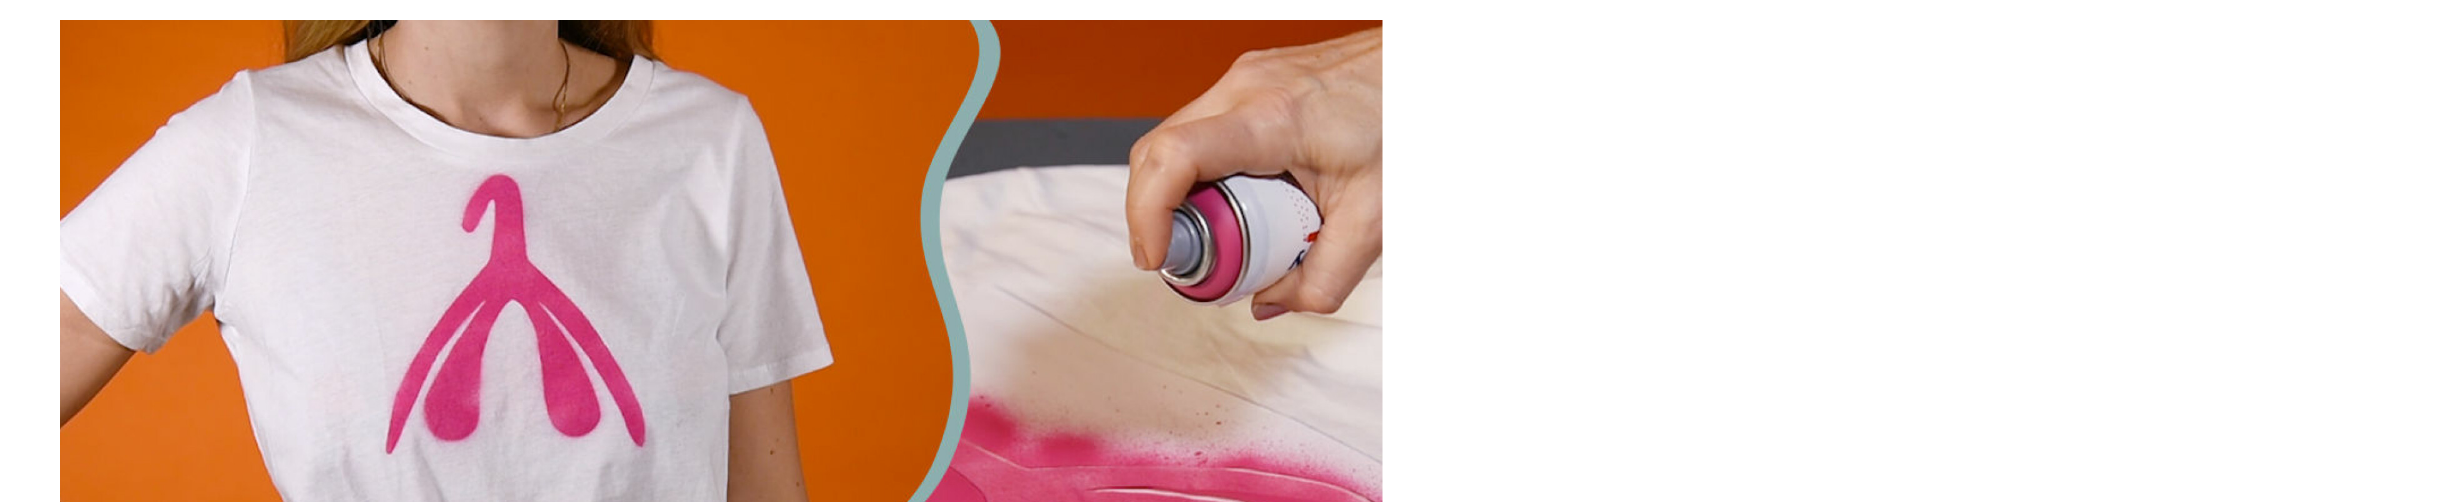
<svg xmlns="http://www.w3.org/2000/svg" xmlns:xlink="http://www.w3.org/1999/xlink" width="2461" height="502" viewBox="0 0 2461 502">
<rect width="100%" height="100%" fill="#ffffff"/>
<image xlink:href="image0.png" x="60" y="20" width="1323" height="482"/>
</svg>
